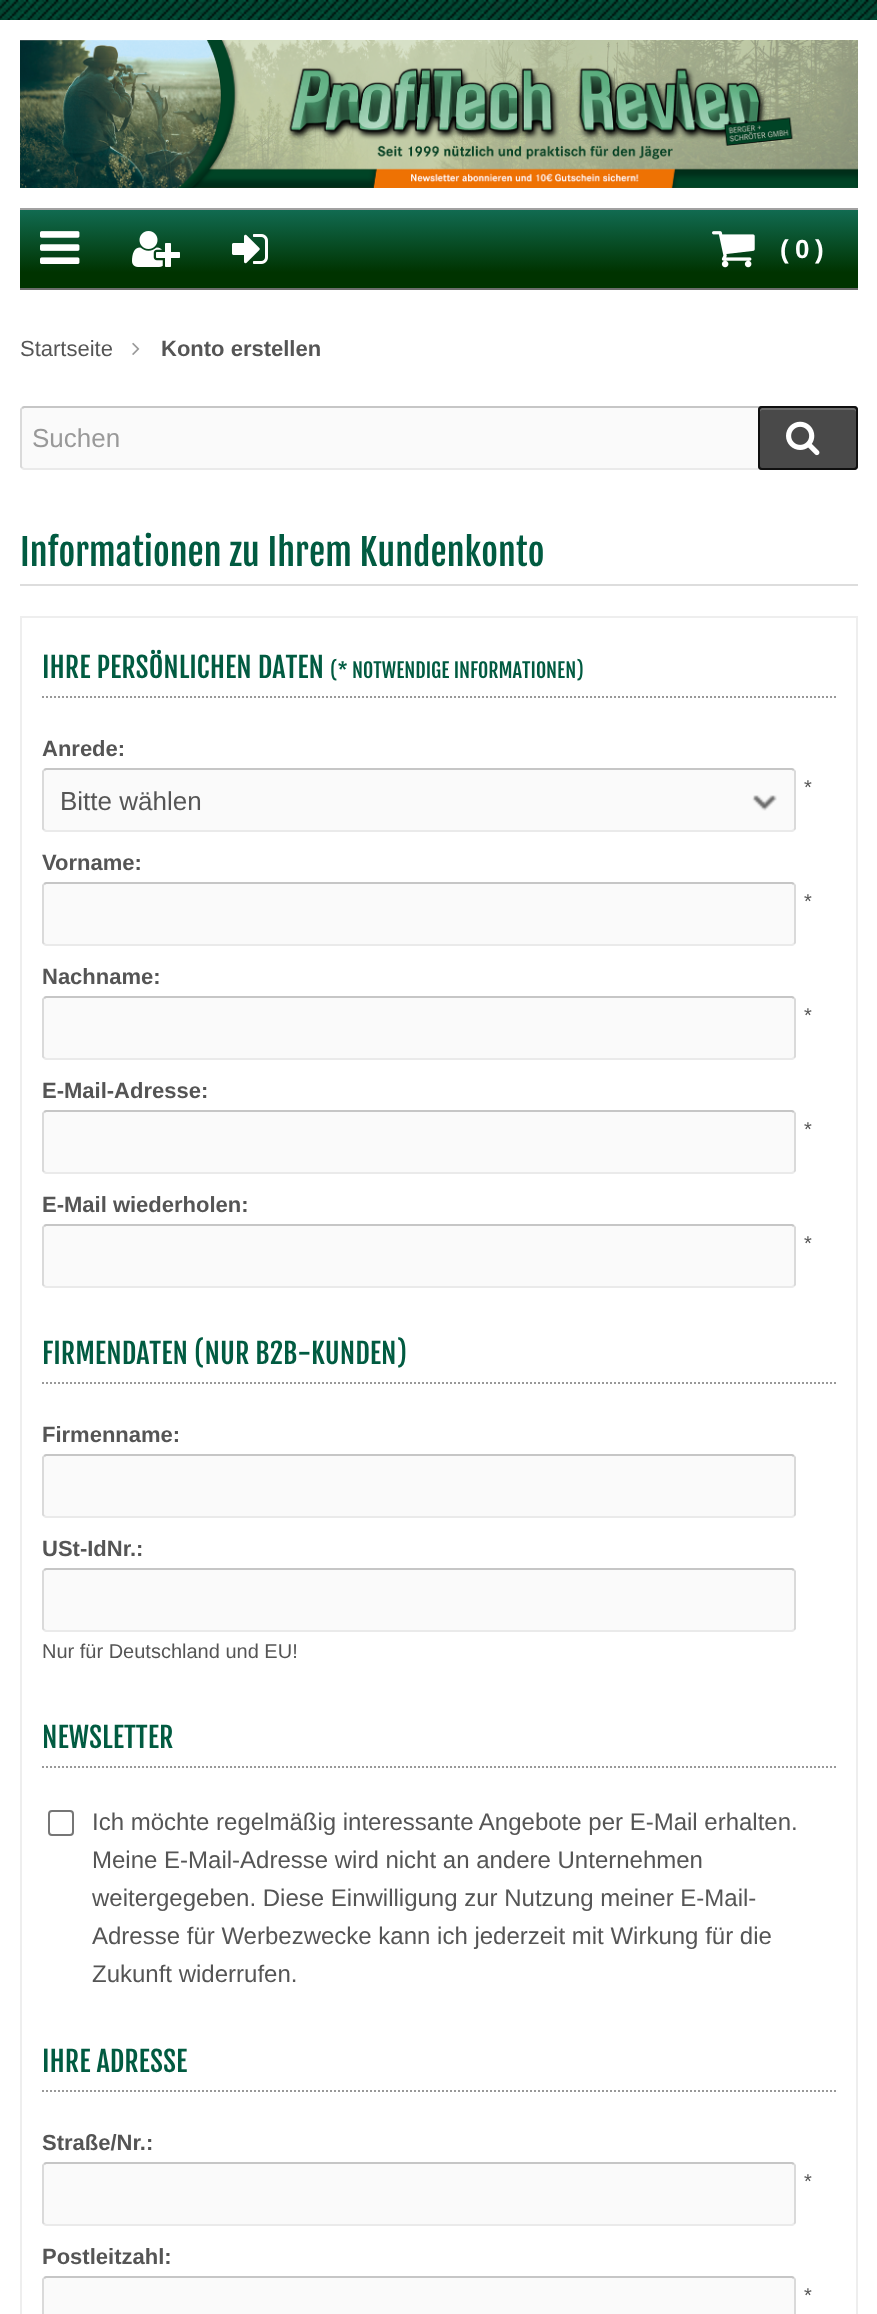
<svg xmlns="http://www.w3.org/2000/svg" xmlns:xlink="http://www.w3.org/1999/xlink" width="877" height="2314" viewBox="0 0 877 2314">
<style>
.cls-1{font:bold 26px Arimo;fill:#ffffff}
.cls-2{font:22px Arimo;fill:#555555}
.cls-3{font:bold 22px Arimo;fill:#555555}
.cls-4{font:26px Arimo;fill:#999999}
.cls-5{font:36px Fjalla One;fill:#015b41}
.cls-6{font:28px Fjalla One;fill:#015b41}
.cls-7{font:20px Fjalla One;fill:#015b41}
.cls-8{font:20px Arimo;fill:#555555}
.cls-9{font:26px Arimo;fill:#555555}
.cls-10{font:24px Arimo;fill:#555555}
</style>
<defs>
<linearGradient id="g1" gradientUnits="userSpaceOnUse" x1="439" y1="210" x2="439" y2="288"><stop offset="0" stop-color="#116b51"/><stop offset="0.8" stop-color="#003300"/></linearGradient>
</defs>
<rect width="100%" height="100%" fill="#ffffff"/>
<image xlink:href="image0.png" x="0" y="0" width="877" height="20"/>
<image xlink:href="image1.png" x="20" y="40" width="838" height="148"/>
<rect fill="url(#g1)" x="20" y="210" width="838" height="78"/>
<rect fill="#a1a1a1" x="20" y="208" width="838" height="2"/>
<rect fill="#6d6d6d" x="20" y="288" width="838" height="2"/>
<image xlink:href="image2.png" x="40" y="231" width="40" height="33"/>
<image xlink:href="image3.png" x="132" y="231" width="48" height="36"/>
<image xlink:href="image4.png" x="232" y="234" width="36" height="30"/>
<image xlink:href="image5.png" x="712" y="231" width="43" height="37"/>
<image xlink:href="image6.png" x="132" y="342" width="8" height="13"/>
<rect fill="#fafafa" x="20" y="406" width="838" height="64" rx="4"/>
<path fill="none" stroke="#c6c6c6" stroke-width="2" d="M22 408L24 407H854L856 408"/>
<path fill="none" stroke="#dadada" stroke-width="2" d="M856 408L857 409.5V466.5L856 468"/>
<path fill="none" stroke="#eaeaea" stroke-width="2" d="M856 468L854 469H24L22 468"/>
<path fill="none" stroke="#dadada" stroke-width="2" d="M22 468L21 466.5V409.5L22 408"/>
<rect fill="#494949" x="758" y="406" width="100" height="64" rx="4"/>
<path fill="#6b6b6b" d="M762 410H854C855 410 856 411 856 412V410C856 409 855 408 854 408H762C761 408 760 409 760 410V412C760 411 761 410 762 410Z"/>
<rect fill="none" stroke="#101010" stroke-width="2" x="759" y="407" width="98" height="62" rx="3"/>
<image xlink:href="image7.png" x="786" y="421" width="34" height="35"/>
<rect fill="#dddddd" x="20" y="584" width="838" height="2"/>
<rect fill="none" stroke="#eeeeee" stroke-width="2" x="21" y="617" width="836" height="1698"/>
<path fill="none" stroke="#999999" stroke-width="2" stroke-dasharray="2 2" d="M42 697H836"/>
<rect fill="#fafafa" x="42" y="768" width="754" height="64" rx="4"/>
<path fill="none" stroke="#c6c6c6" stroke-width="2" d="M44 770L46 769H792L794 770"/>
<path fill="none" stroke="#dadada" stroke-width="2" d="M794 770L795 771.5V828.5L794 830"/>
<path fill="none" stroke="#eaeaea" stroke-width="2" d="M794 830L792 831H46L44 830"/>
<path fill="none" stroke="#dadada" stroke-width="2" d="M44 830L43 828.5V771.5L44 770"/>
<image xlink:href="image8.png" x="752" y="795" width="25" height="16"/>
<rect fill="#fafafa" x="42" y="882" width="754" height="64" rx="4"/>
<path fill="none" stroke="#c6c6c6" stroke-width="2" d="M44 884L46 883H792L794 884"/>
<path fill="none" stroke="#dadada" stroke-width="2" d="M794 884L795 885.5V942.5L794 944"/>
<path fill="none" stroke="#eaeaea" stroke-width="2" d="M794 944L792 945H46L44 944"/>
<path fill="none" stroke="#dadada" stroke-width="2" d="M44 944L43 942.5V885.5L44 884"/>
<rect fill="#fafafa" x="42" y="996" width="754" height="64" rx="4"/>
<path fill="none" stroke="#c6c6c6" stroke-width="2" d="M44 998L46 997H792L794 998"/>
<path fill="none" stroke="#dadada" stroke-width="2" d="M794 998L795 999.5V1056.5L794 1058"/>
<path fill="none" stroke="#eaeaea" stroke-width="2" d="M794 1058L792 1059H46L44 1058"/>
<path fill="none" stroke="#dadada" stroke-width="2" d="M44 1058L43 1056.5V999.5L44 998"/>
<rect fill="#fafafa" x="42" y="1110" width="754" height="64" rx="4"/>
<path fill="none" stroke="#c6c6c6" stroke-width="2" d="M44 1112L46 1111H792L794 1112"/>
<path fill="none" stroke="#dadada" stroke-width="2" d="M794 1112L795 1113.5V1170.5L794 1172"/>
<path fill="none" stroke="#eaeaea" stroke-width="2" d="M794 1172L792 1173H46L44 1172"/>
<path fill="none" stroke="#dadada" stroke-width="2" d="M44 1172L43 1170.5V1113.5L44 1112"/>
<rect fill="#fafafa" x="42" y="1224" width="754" height="64" rx="4"/>
<path fill="none" stroke="#c6c6c6" stroke-width="2" d="M44 1226L46 1225H792L794 1226"/>
<path fill="none" stroke="#dadada" stroke-width="2" d="M794 1226L795 1227.5V1284.5L794 1286"/>
<path fill="none" stroke="#eaeaea" stroke-width="2" d="M794 1286L792 1287H46L44 1286"/>
<path fill="none" stroke="#dadada" stroke-width="2" d="M44 1286L43 1284.5V1227.5L44 1226"/>
<path fill="none" stroke="#999999" stroke-width="2" stroke-dasharray="2 2" d="M42 1383H836"/>
<rect fill="#fafafa" x="42" y="1454" width="754" height="64" rx="4"/>
<path fill="none" stroke="#c6c6c6" stroke-width="2" d="M44 1456L46 1455H792L794 1456"/>
<path fill="none" stroke="#dadada" stroke-width="2" d="M794 1456L795 1457.5V1514.5L794 1516"/>
<path fill="none" stroke="#eaeaea" stroke-width="2" d="M794 1516L792 1517H46L44 1516"/>
<path fill="none" stroke="#dadada" stroke-width="2" d="M44 1516L43 1514.5V1457.5L44 1456"/>
<rect fill="#fafafa" x="42" y="1568" width="754" height="64" rx="4"/>
<path fill="none" stroke="#c6c6c6" stroke-width="2" d="M44 1570L46 1569H792L794 1570"/>
<path fill="none" stroke="#dadada" stroke-width="2" d="M794 1570L795 1571.5V1628.5L794 1630"/>
<path fill="none" stroke="#eaeaea" stroke-width="2" d="M794 1630L792 1631H46L44 1630"/>
<path fill="none" stroke="#dadada" stroke-width="2" d="M44 1630L43 1628.5V1571.5L44 1570"/>
<path fill="none" stroke="#999999" stroke-width="2" stroke-dasharray="2 2" d="M42 1767H836"/>
<rect fill="none" stroke="#767676" stroke-width="2" x="49" y="1811" width="24" height="24" rx="3"/>
<path fill="none" stroke="#999999" stroke-width="2" stroke-dasharray="2 2" d="M42 2091H836"/>
<rect fill="#fafafa" x="42" y="2162" width="754" height="64" rx="4"/>
<path fill="none" stroke="#c6c6c6" stroke-width="2" d="M44 2164L46 2163H792L794 2164"/>
<path fill="none" stroke="#dadada" stroke-width="2" d="M794 2164L795 2165.5V2222.5L794 2224"/>
<path fill="none" stroke="#eaeaea" stroke-width="2" d="M794 2224L792 2225H46L44 2224"/>
<path fill="none" stroke="#dadada" stroke-width="2" d="M44 2224L43 2222.5V2165.5L44 2164"/>
<rect fill="#fafafa" x="42" y="2276" width="754" height="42" rx="4"/>
<path fill="none" stroke="#c6c6c6" stroke-width="2" d="M44 2278L46 2277H792L794 2278"/>
<path fill="none" stroke="#dadada" stroke-width="2" d="M794 2278L795 2279.5V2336.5L794 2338"/>
<path fill="none" stroke="#dadada" stroke-width="2" d="M44 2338L43 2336.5V2279.5L44 2278"/>
<text class="cls-1" x="780" y="258">(</text>
<text class="cls-1" x="795" y="258">0</text>
<text class="cls-1" x="815" y="258">)</text>
<text class="cls-2" x="20" y="356">Startseite</text>
<text class="cls-3" x="161" y="356">Konto erstellen</text>
<text class="cls-4" x="32" y="447">Suchen</text>
<text class="cls-5" x="20" y="566">Informationen zu Ihrem Kundenkonto</text>
<text class="cls-6" x="42" y="678">IHRE PERSÖNLICHEN DATEN</text>
<text class="cls-7" x="330" y="678">(* NOTWENDIGE INFORMATIONEN)</text>
<text class="cls-3" x="42" y="756">Anrede:</text>
<text class="cls-8" x="804" y="794">*</text>
<text class="cls-9" x="60" y="810">Bitte wählen</text>
<text class="cls-3" x="42" y="870">Vorname:</text>
<text class="cls-8" x="804" y="908">*</text>
<text class="cls-3" x="42" y="984">Nachname:</text>
<text class="cls-8" x="804" y="1022">*</text>
<text class="cls-3" x="42" y="1098">E-Mail-Adresse:</text>
<text class="cls-8" x="804" y="1136">*</text>
<text class="cls-3" x="42" y="1212">E-Mail wiederholen:</text>
<text class="cls-8" x="804" y="1250">*</text>
<text class="cls-6" x="42" y="1364">FIRMENDATEN (NUR B2B-KUNDEN)</text>
<text class="cls-3" x="42" y="1442">Firmenname:</text>
<text class="cls-3" x="42" y="1556">USt-IdNr.:</text>
<text class="cls-8" x="42" y="1658">Nur für Deutschland und EU!</text>
<text class="cls-6" x="42" y="1748">NEWSLETTER</text>
<text class="cls-10"><tspan x="92" y="1830">Ich möchte regelmäßig interessante Angebote per E-Mail erhalten.</tspan><tspan x="92" y="1868">Meine E-Mail-Adresse wird nicht an andere Unternehmen</tspan><tspan x="92" y="1906">weitergegeben. Diese Einwilligung zur Nutzung meiner E-Mail-</tspan><tspan x="92" y="1944">Adresse für Werbezwecke kann ich jederzeit mit Wirkung für die</tspan><tspan x="92" y="1982">Zukunft widerrufen.</tspan></text>
<text class="cls-6" x="42" y="2072">IHRE ADRESSE</text>
<text class="cls-3" x="42" y="2150">Straße/Nr.:</text>
<text class="cls-8" x="804" y="2188">*</text>
<text class="cls-3" x="42" y="2264">Postleitzahl:</text>
<text class="cls-8" x="804" y="2302">*</text>
</svg>
